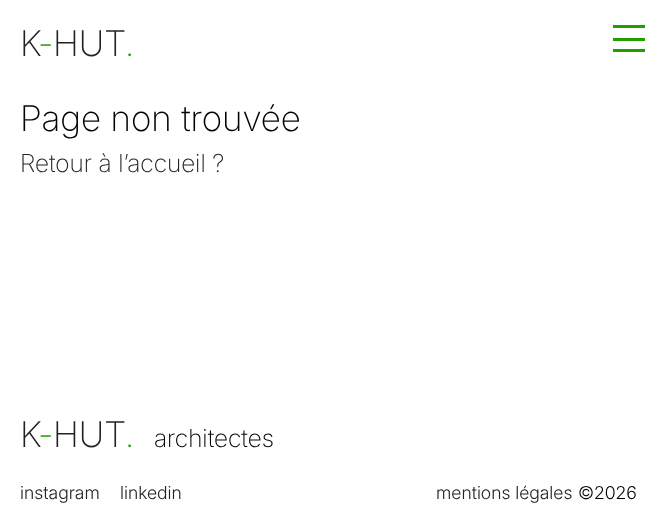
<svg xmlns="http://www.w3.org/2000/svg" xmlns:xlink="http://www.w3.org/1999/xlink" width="669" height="526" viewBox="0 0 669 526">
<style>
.cls-1{font:200 35.5px Inter;fill:#222222}
.cls-2{font:200 35.5px Inter;fill:#239e00}
.cls-3{font:200 35.5px Inter;fill:#000000}
.cls-4{font:200 24.75px Inter;fill:#222222}
.cls-5{font:200 24.75px Inter;fill:#000000}
.cls-6{font:300 17.75px Inter;fill:#222222}
.cls-7{font:300 17.75px Inter;fill:#000000}
</style>
<rect width="100%" height="100%" fill="#ffffff"/>
<rect fill="#239e00" x="613" y="38" width="32" height="3"/>
<rect fill="#239e00" x="613" y="25" width="32" height="3"/>
<rect fill="#239e00" x="613" y="49" width="32" height="3"/>
<text class="cls-1" x="20" y="56">K</text>
<text class="cls-2" x="38" y="56">-</text>
<text class="cls-1" x="53" y="56">HUT</text>
<text class="cls-2" x="125" y="56">.</text>
<text class="cls-3" x="20" y="131">Page non trouvée</text>
<text class="cls-4" x="20" y="172">Retour à l’accueil ?</text>
<text class="cls-1" x="20" y="447">K</text>
<text class="cls-2" x="38" y="447">-</text>
<text class="cls-1" x="53" y="447">HUT</text>
<text class="cls-2" x="125" y="447">.</text>
<text class="cls-5" x="154" y="447">architectes</text>
<text class="cls-6" x="20" y="499">instagram</text>
<text class="cls-6" x="120" y="499">linkedin</text>
<text class="cls-6" x="436" y="499">mentions légales</text>
<text class="cls-7" x="578" y="499">©2026</text>
</svg>
